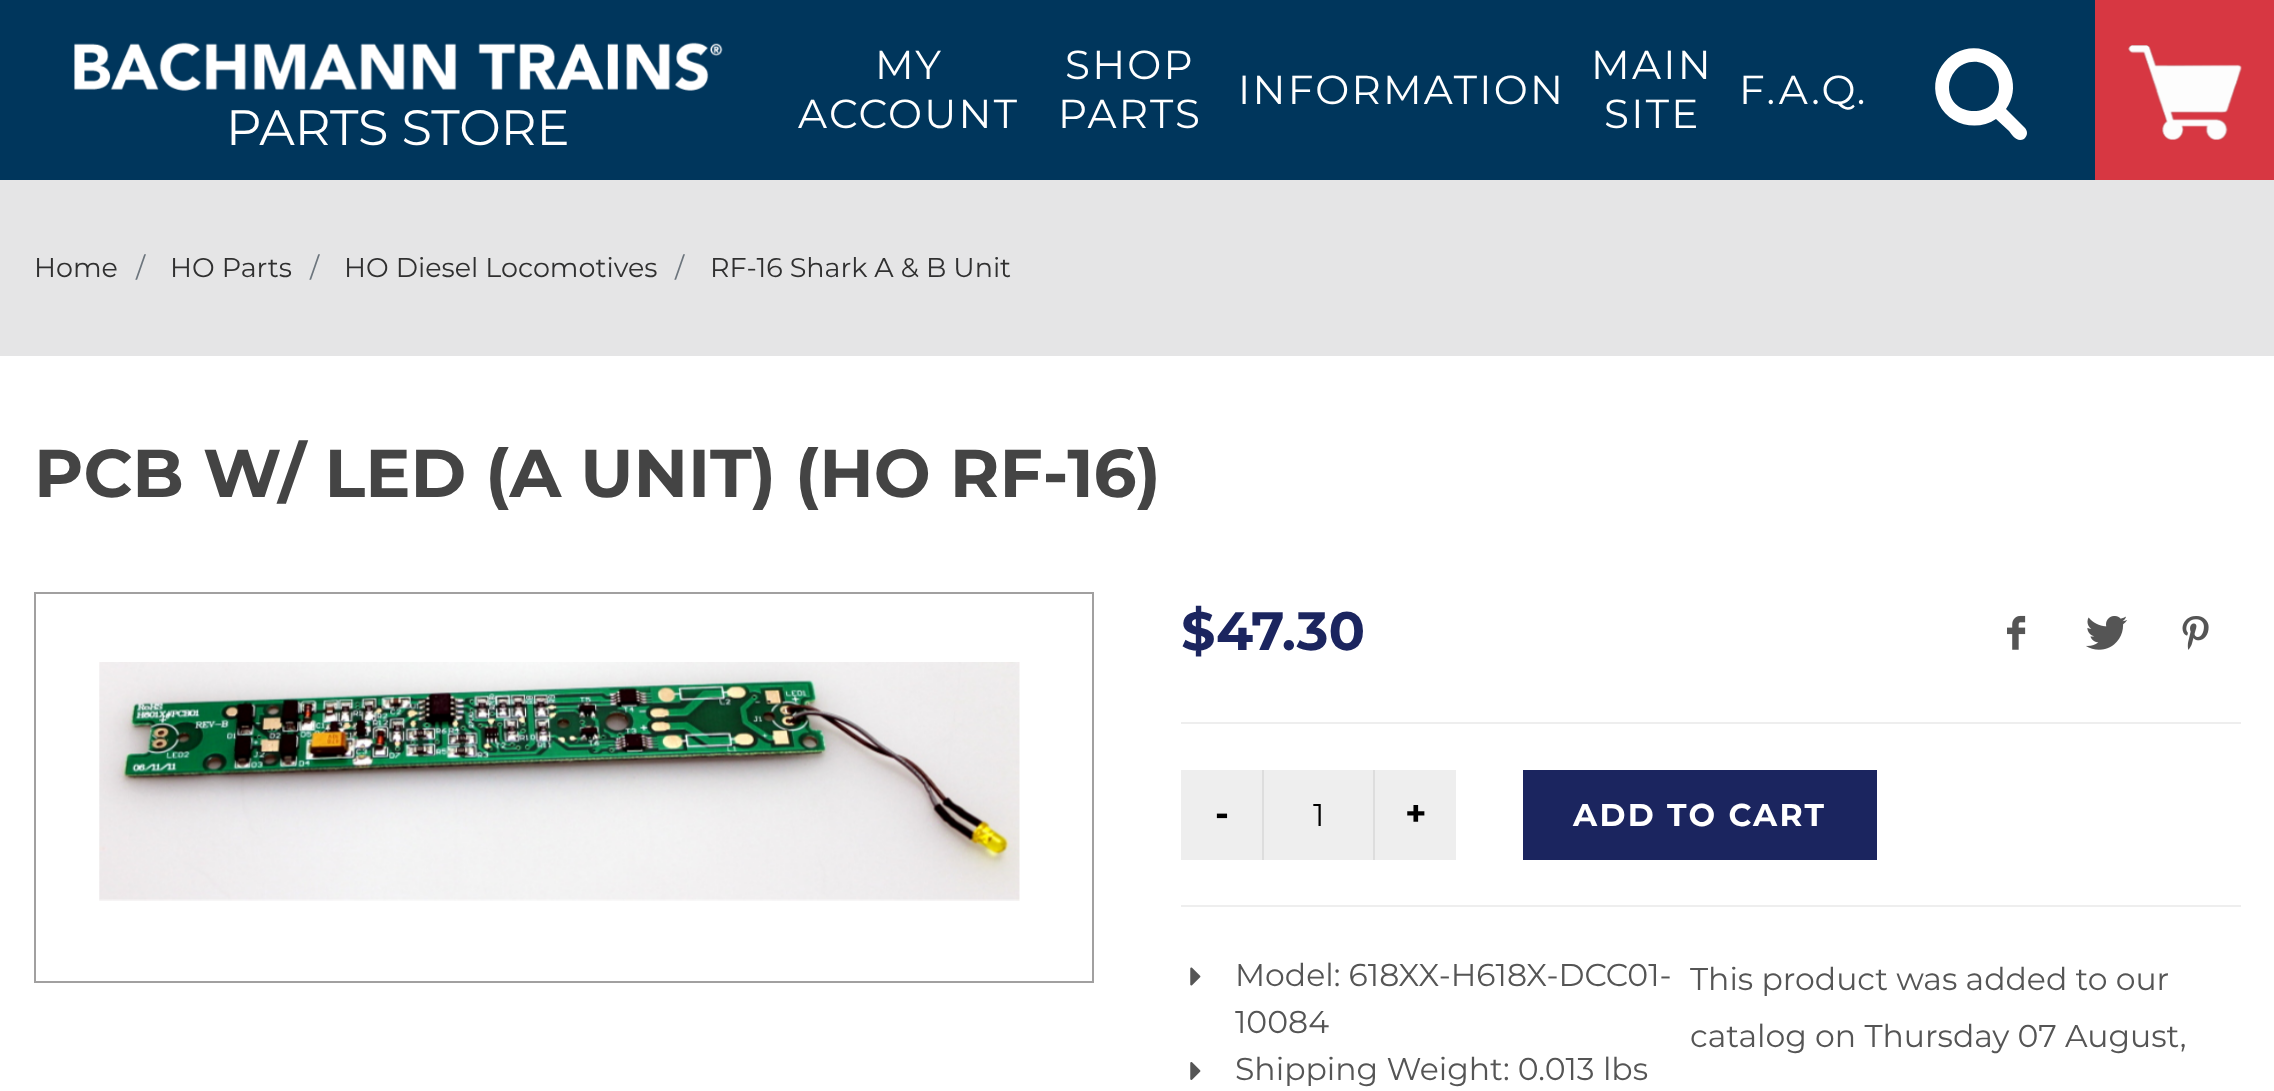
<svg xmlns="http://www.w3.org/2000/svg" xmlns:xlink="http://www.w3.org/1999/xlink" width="2274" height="1091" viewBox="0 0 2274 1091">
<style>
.cls-1{font:49.5px Montserrat;fill:#ffffff}
.cls-2{font:40.5px Montserrat;letter-spacing:2.25px;fill:#ffffff}
.cls-3{font:27px Montserrat;fill:#303030}
.cls-4{font:27px Montserrat;fill:#6c757d}
.cls-5{font:bold 67.5px Montserrat;fill:#444444}
.cls-6{font:bold 54px Montserrat;fill:#1b255f}
.cls-7{font:bold 36px Montserrat;fill:#000000}
.cls-8{font:31.5px Montserrat;fill:#000000}
.cls-9{font:bold 31.5px Montserrat;letter-spacing:2.25px;fill:#ffffff}
.cls-10{font:31.5px Montserrat;fill:#555555}
</style>
<rect width="100%" height="100%" fill="#ffffff"/>
<rect fill="#00365c" x="0" y="0" width="2095" height="180"/>
<image xlink:href="image0.png" x="74" y="42" width="649" height="49"/>
<path fill="#ffffff" d="M1999 87C1999 63 1970 53 1955 71C1951 76 1949 81 1949 87C1949 119 1999 119 1999 87ZM2027 133C2027 135 2026 137 2024 139C2017 143 2012 135 2009 131L1996 119C1977 132 1949 125 1939 104C1923 69 1961 34 1994 54C2002 58 2008 66 2011 75C2015 87 2013 99 2006 109L2025 128C2026 129 2027 131 2027 133Z"/>
<rect fill="#d73742" x="2095" y="0" width="179" height="180"/>
<image xlink:href="image1.png" x="2128" y="45" width="114" height="95"/>
<rect fill="#e5e5e6" x="0" y="180" width="2274" height="176"/>
<rect fill="none" stroke="#a1a0a0" stroke-width="2" x="35" y="593" width="1058" height="389"/>
<image xlink:href="image2.png" x="99" y="662" width="921" height="239"/>
<image xlink:href="image3.png" x="2007" y="615" width="19" height="35"/>
<image xlink:href="image4.png" x="2086" y="616" width="42" height="34"/>
<image xlink:href="image5.png" x="2182" y="616" width="27" height="34"/>
<rect fill="#eeeeee" x="1181" y="722" width="1060" height="2"/>
<rect fill="#eeeeee" x="1181" y="770" width="81" height="90"/>
<rect fill="#eeeeee" x="1264" y="770" width="109" height="90"/>
<rect fill="#dddddd" x="1373" y="770" width="2" height="90"/>
<rect fill="#dddddd" x="1262" y="770" width="2" height="90"/>
<rect fill="#eeeeee" x="1375" y="770" width="81" height="90"/>
<rect fill="#1b255f" x="1523" y="770" width="354" height="90"/>
<rect fill="#eeeeee" x="1181" y="905" width="1060" height="2"/>
<image xlink:href="image6.png" x="1190" y="967" width="11" height="19"/>
<image xlink:href="image7.png" x="1190" y="1062" width="11" height="18"/>
<text class="cls-1" x="226" y="145">PARTS STORE</text>
<text class="cls-2" x="875" y="79">MY</text>
<text class="cls-2" x="798" y="128">ACCOUNT</text>
<text class="cls-2" x="1065" y="79">SHOP</text>
<text class="cls-2" x="1058" y="128">PARTS</text>
<text class="cls-2" x="1238" y="104">INFORMATION</text>
<text class="cls-2" x="1591" y="79">MAIN</text>
<text class="cls-2" x="1604" y="128">SITE</text>
<text class="cls-2" x="1739" y="104">F.A.Q.</text>
<text class="cls-3" x="34" y="277">Home</text>
<text class="cls-4" x="136" y="277">/</text>
<text class="cls-3" x="170" y="277">HO Parts</text>
<text class="cls-4" x="310" y="277">/</text>
<text class="cls-3" x="344" y="277">HO Diesel Locomotives</text>
<text class="cls-4" x="675" y="277">/</text>
<text class="cls-3" x="710" y="277">RF-16 Shark A &amp; B Unit</text>
<text class="cls-5" x="34" y="497">PCB W/ LED (A UNIT) (HO RF-16)</text>
<text class="cls-6" x="1181" y="650">$47.30</text>
<text class="cls-7" x="1215" y="826">-</text>
<text class="cls-8" x="1313" y="826">1</text>
<text class="cls-7" x="1405" y="826">+</text>
<text class="cls-9" x="1573" y="826">ADD TO CART</text>
<text class="cls-10"><tspan x="1235" y="986">Model: 618XX-H618X-DCC01-</tspan><tspan x="1235" y="1033">10084</tspan><tspan x="1235" y="1080">Shipping Weight: 0.013 lbs</tspan></text>
<text class="cls-10"><tspan x="1690" y="990">This product was added to our</tspan><tspan x="1690" y="1047">catalog on Thursday 07 August,</tspan></text>
</svg>
